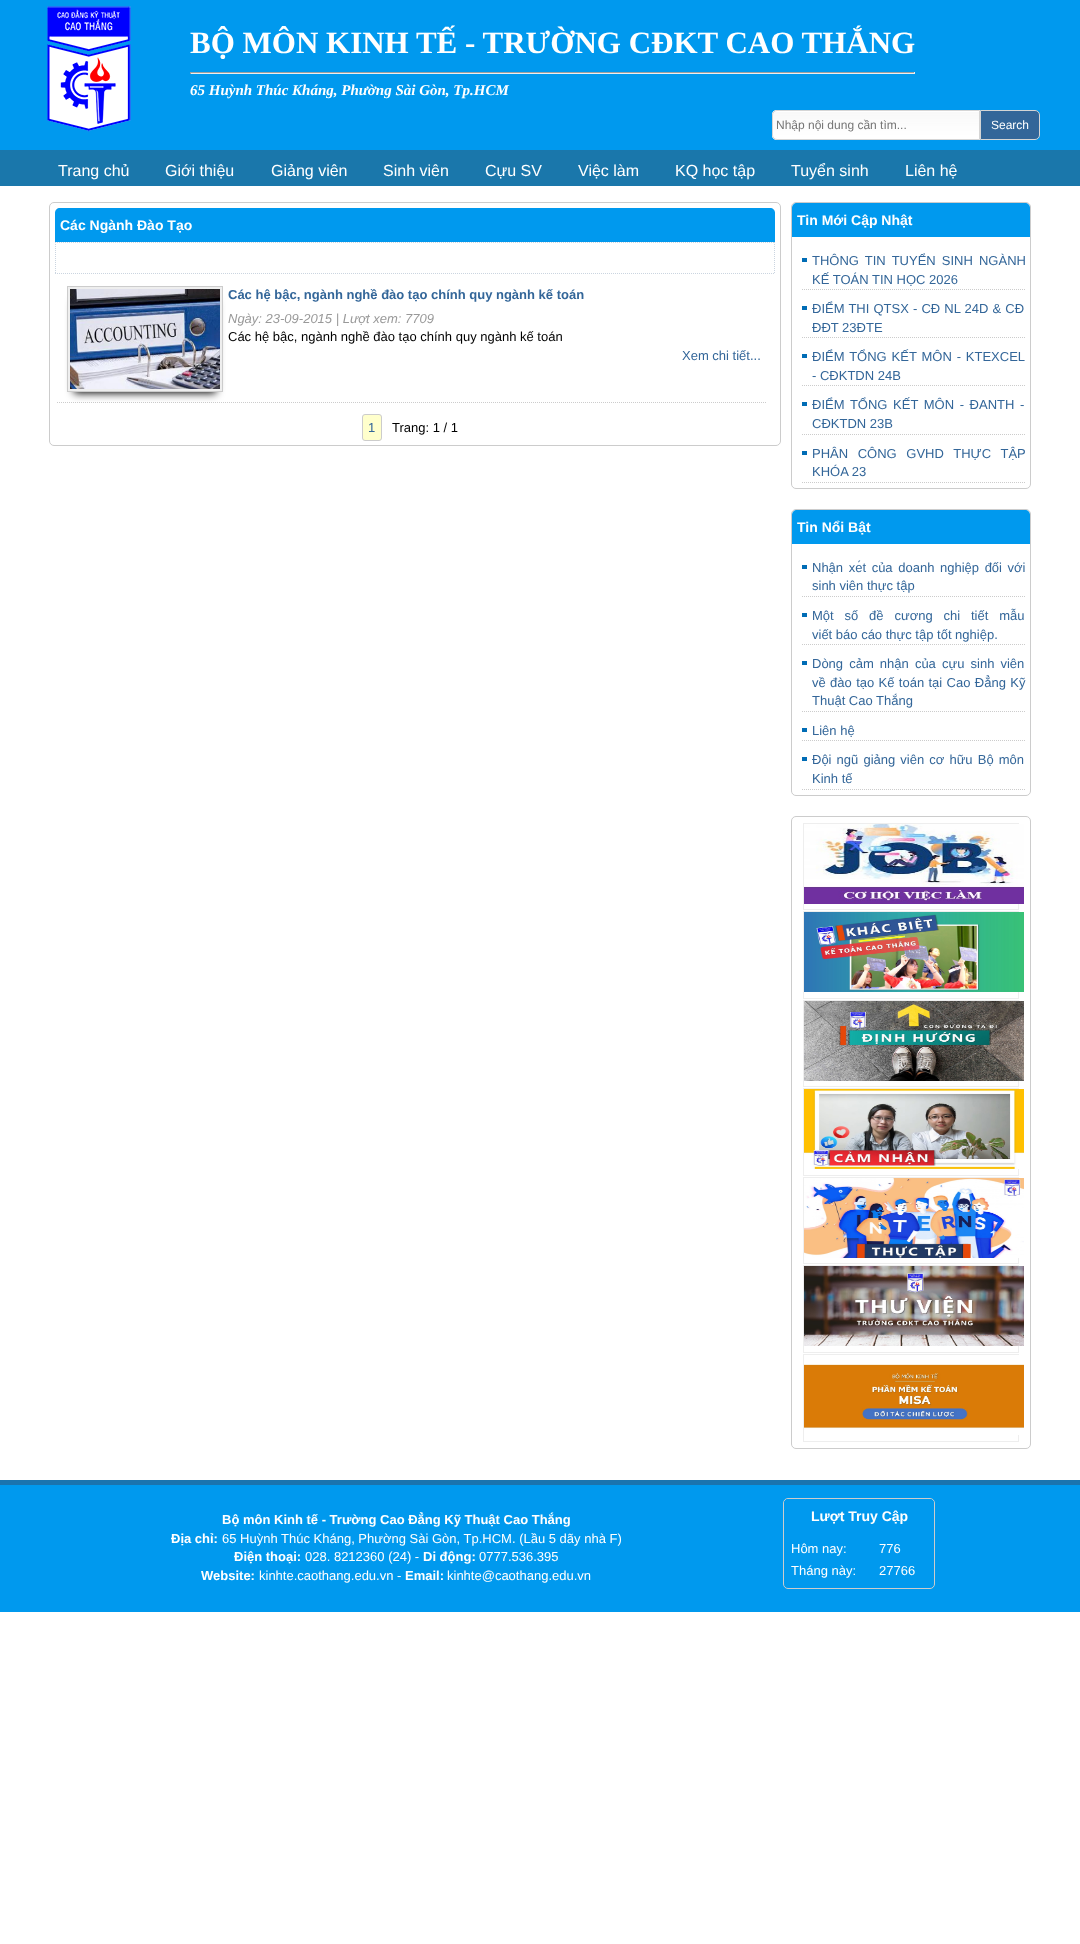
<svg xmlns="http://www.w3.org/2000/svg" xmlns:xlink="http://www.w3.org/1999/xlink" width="1080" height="1944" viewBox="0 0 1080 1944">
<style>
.cls-1{font:bold 31px Liberation Serif;fill:#ffffff}
.cls-2{font:italic bold 15px Liberation Serif;fill:#ffffff}
.cls-3{font:12px Liberation Sans;fill:#757575}
.cls-4{font:12px Liberation Sans;fill:#ffffff}
.cls-5{font:16px Liberation Sans;fill:#ffffff}
.cls-6{font:bold 14px Liberation Sans;fill:#ffffff}
.cls-7{font:bold 13px Liberation Sans;fill:#336699}
.cls-8{font:italic 13px Liberation Sans;fill:#999999}
.cls-9{font:13px Liberation Sans;fill:#000000}
.cls-10{font:13px Liberation Sans;fill:#336699}
.cls-11{font:bold 13px Liberation Sans;fill:#ffffff}
.cls-12{font:13px Liberation Sans;fill:#ffffff}
</style>
<rect width="100%" height="100%" fill="#ffffff"/>
<rect fill="#0099ee" x="0" y="0" width="1080" height="150"/>
<image xlink:href="image0.png" x="47" y="6" width="84" height="126"/>
<rect fill="#9f9f9f" x="190" y="72" width="725" height="1"/>
<rect fill="#eeeeee" x="914" y="72" width="1" height="2"/>
<rect fill="#eeeeee" x="190" y="73" width="725" height="1"/>
<rect fill="#9f9f9f" x="190" y="72" width="1" height="2"/>
<path fill="#ffffff" d="M777 110H980V140H777C774 140 772 138 772 135V115C772 112 774 110 777 110Z"/>
<image xlink:href="image1.png" x="772" y="111" width="207" height="27"/>
<path fill="none" stroke="#d5d5d5" d="M777 110.5H979.5V139.5H777C774.5 139.5 772.5 137.5 772.5 135V115C772.5 112.5 774.5 110.5 777 110.5Z"/>
<path fill="#336699" stroke="#d5d5d5" d="M980.5 110.5H1035C1037.5 110.5 1039.5 112.5 1039.5 115V135C1039.5 137.5 1037.5 139.5 1035 139.5H980.5Z"/>
<rect fill="#1a77ab" x="0" y="150" width="1080" height="36"/>
<rect fill="none" stroke="#cccccc" x="49.5" y="202.5" width="731" height="243" rx="4.5"/>
<path fill="#0099ee" d="M60 208H770C773 208 775 210 775 213V242H55V213C55 210 57 208 60 208Z"/>
<path fill="none" stroke="#cbd5e0" stroke-dasharray="1 1" d="M55 242.5H775"/>
<path fill="none" stroke="#cbd5e0" stroke-dasharray="1 1" d="M774.5 242V274"/>
<path fill="none" stroke="#cbd5e0" stroke-dasharray="1 1" d="M55 273.5H775"/>
<path fill="none" stroke="#cbd5e0" stroke-dasharray="1 1" d="M55.5 242V274"/>
<path fill="none" stroke="#cccccc" stroke-dasharray="1 1" d="M57 402.5H766"/>
<rect fill="#000000" filter="blur(4px)" x="74" y="301" width="142" height="92"/>
<rect fill="#eeeeee" stroke="#cccccc" x="67.5" y="286.5" width="155" height="105"/>
<image xlink:href="image2.png" x="70" y="289" width="150" height="100"/>
<rect fill="#ffffcc" stroke="#cccccc" x="362.5" y="414.5" width="19" height="26" rx="2.5"/>
<rect fill="none" stroke="#cccccc" x="791.5" y="202.5" width="239" height="286" rx="4.5"/>
<path fill="#0099ee" d="M797 203H1025C1028 203 1030 205 1030 208V237H792V208C792 205 794 203 797 203Z"/>
<rect fill="#006cb5" x="802" y="258" width="5" height="4"/>
<path fill="none" stroke="#cccccc" stroke-dasharray="1 1" d="M802 289.5H1025"/>
<rect fill="#006cb5" x="802" y="306" width="5" height="4"/>
<path fill="none" stroke="#cccccc" stroke-dasharray="1 1" d="M802 337.5H1025"/>
<rect fill="#006cb5" x="802" y="354" width="5" height="4"/>
<path fill="none" stroke="#cccccc" stroke-dasharray="1 1" d="M802 385.5H1025"/>
<rect fill="#006cb5" x="802" y="402" width="5" height="4"/>
<path fill="none" stroke="#cccccc" stroke-dasharray="1 1" d="M802 434.5H1025"/>
<rect fill="#006cb5" x="802" y="451" width="5" height="4"/>
<path fill="none" stroke="#cccccc" stroke-dasharray="1 1" d="M802 482.5H1025"/>
<rect fill="none" stroke="#cccccc" x="791.5" y="509.5" width="239" height="286" rx="4.5"/>
<path fill="#0099ee" d="M797 510H1025C1028 510 1030 512 1030 515V544H792V515C792 512 794 510 797 510Z"/>
<rect fill="#006cb5" x="802" y="565" width="5" height="4"/>
<path fill="none" stroke="#cccccc" stroke-dasharray="1 1" d="M802 596.5H1025"/>
<rect fill="#006cb5" x="802" y="613" width="5" height="4"/>
<path fill="none" stroke="#cccccc" stroke-dasharray="1 1" d="M802 644.5H1025"/>
<rect fill="#006cb5" x="802" y="661" width="5" height="4"/>
<path fill="none" stroke="#cccccc" stroke-dasharray="1 1" d="M802 711.5H1025"/>
<rect fill="#006cb5" x="802" y="728" width="5" height="4"/>
<path fill="none" stroke="#cccccc" stroke-dasharray="1 1" d="M802 740.5H1025"/>
<rect fill="#006cb5" x="802" y="757" width="5" height="4"/>
<path fill="none" stroke="#cccccc" stroke-dasharray="1 1" d="M802 789.5H1025"/>
<rect fill="none" stroke="#cccccc" x="791.5" y="816.5" width="239" height="632" rx="4.5"/>
<rect fill="none" stroke="#eeeeee" x="803.5" y="823.5" width="215" height="86"/>
<image xlink:href="image3.png" x="804" y="824" width="220" height="80"/>
<rect fill="none" stroke="#eeeeee" x="803.5" y="911.5" width="215" height="87"/>
<image xlink:href="image4.png" x="804" y="912" width="220" height="80"/>
<rect fill="none" stroke="#eeeeee" x="803.5" y="1000.5" width="215" height="86"/>
<image xlink:href="image5.png" x="804" y="1001" width="220" height="80"/>
<rect fill="none" stroke="#eeeeee" x="803.5" y="1088.5" width="215" height="87"/>
<image xlink:href="image6.png" x="804" y="1089" width="220" height="80"/>
<rect fill="none" stroke="#eeeeee" x="803.5" y="1177.5" width="215" height="86"/>
<image xlink:href="image7.png" x="804" y="1178" width="220" height="80"/>
<rect fill="none" stroke="#eeeeee" x="803.5" y="1265.5" width="215" height="87"/>
<image xlink:href="image8.png" x="804" y="1266" width="220" height="80"/>
<rect fill="none" stroke="#eeeeee" x="803.5" y="1354.5" width="215" height="87"/>
<image xlink:href="image9.png" x="804" y="1355" width="220" height="80"/>
<rect fill="#0099ee" x="0" y="1485" width="1080" height="127"/>
<rect fill="#1a74af" x="0" y="1480" width="1080" height="5"/>
<rect fill="none" stroke="#cccccc" x="783.5" y="1498.5" width="151" height="90" rx="4.5"/>
<path fill="#0099ee" d="M789 1499H929C932 1499 934 1501 934 1504V1533H784V1504C784 1501 786 1499 789 1499Z"/>
<text class="cls-1" x="190" y="53">BỘ MÔN KINH TẾ - TRƯỜNG CĐKT CAO THẮNG</text>
<text class="cls-2" x="190" y="95">65 Huỳnh Thúc Kháng, Phường Sài Gòn, Tp.HCM</text>
<text class="cls-3" x="776" y="129">Nhập nội dung cần tìm...</text>
<text class="cls-4" x="991" y="129">Search</text>
<text class="cls-5" x="58" y="176">Trang chủ</text>
<text class="cls-5" x="165" y="176">Giới thiệu</text>
<text class="cls-5" x="271" y="176">Giảng viên</text>
<text class="cls-5" x="383" y="176">Sinh viên</text>
<text class="cls-5" x="485" y="176">Cựu SV</text>
<text class="cls-5" x="578" y="176">Việc làm</text>
<text class="cls-5" x="675" y="176">KQ học tập</text>
<text class="cls-5" x="791" y="176">Tuyển sinh</text>
<text class="cls-5" x="905" y="176">Liên hệ</text>
<text class="cls-6" x="60" y="230">Các Ngành Đào Tạo</text>
<text class="cls-7" x="228" y="299">Các hệ bậc, ngành nghề đào tạo chính quy ngành kế toán</text>
<text class="cls-8" x="228" y="323">Ngày: 23-09-2015 | Lượt xem: 7709</text>
<text class="cls-9" x="228" y="341">Các hệ bậc, ngành nghề đào tạo chính quy ngành kế toán</text>
<text class="cls-10" x="682" y="360">Xem chi tiết...</text>
<text class="cls-10" x="368" y="432">1</text>
<text class="cls-9" x="392" y="432">Trang: 1 / 1</text>
<text class="cls-6" x="797" y="225">Tin Mới Cập Nhật</text>
<text class="cls-10"><tspan x="812" y="265" word-spacing="2.5">THÔNG TIN TUYỂN SINH NGÀNH</tspan><tspan x="812" y="284">KẾ TOÁN TIN HỌC 2026</tspan></text>
<text class="cls-10"><tspan x="812" y="313" word-spacing="0.5">ĐIỂM THI QTSX - CĐ NL 24D &amp; CĐ</tspan><tspan x="812" y="332">ĐĐT 23ĐTE</tspan></text>
<text class="cls-10"><tspan x="812" y="361" word-spacing="1.25">ĐIỂM TỔNG KẾT MÔN - KTEXCEL</tspan><tspan x="812" y="380">- CĐKTDN 24B</tspan></text>
<text class="cls-10"><tspan x="812" y="409" word-spacing="2">ĐIỂM TỔNG KẾT MÔN - ĐANTH -</tspan><tspan x="812" y="428">CĐKTDN 23B</tspan></text>
<text class="cls-10"><tspan x="812" y="458" word-spacing="6">PHÂN CÔNG GVHD THỰC TẬP</tspan><tspan x="812" y="476">KHÓA 23</tspan></text>
<text class="cls-6" x="797" y="532">Tin Nổi Bật</text>
<text class="cls-10"><tspan x="812" y="572" word-spacing="2">Nhận xét của doanh nghiệp đối với</tspan><tspan x="812" y="590">sinh viên thực tập</tspan></text>
<text class="cls-10"><tspan x="812" y="620" word-spacing="7.25">Một số đề cương chi tiết mẫu</tspan><tspan x="812" y="639">viết báo cáo thực tập tốt nghiệp.</tspan></text>
<text class="cls-10"><tspan x="812" y="668" word-spacing="2.5">Dòng cảm nhận của cựu sinh viên</tspan><tspan x="812" y="687" word-spacing="0.75">về đào tạo Kế toán tại Cao Đẳng Kỹ</tspan><tspan x="812" y="705">Thuật Cao Thắng</tspan></text>
<text class="cls-10" x="812" y="735">Liên hệ</text>
<text class="cls-10"><tspan x="812" y="764" word-spacing="1.5">Đội ngũ giảng viên cơ hữu Bộ môn</tspan><tspan x="812" y="783">Kinh tế</tspan></text>
<text class="cls-11" x="222" y="1524">Bộ môn Kinh tế - Trường Cao Đẳng Kỹ Thuật Cao Thắng</text>
<text class="cls-11" x="171" y="1543">Địa chỉ:</text>
<text class="cls-12" x="222" y="1543">65 Huỳnh Thúc Kháng, Phường Sài Gòn, Tp.HCM. (Lầu 5 dãy nhà F)</text>
<text class="cls-11" x="234" y="1561">Điện thoại:</text>
<text class="cls-12" x="305" y="1561">028. 8212360 (24) -</text>
<text class="cls-11" x="423" y="1561">Di động:</text>
<text class="cls-12" x="479" y="1561">0777.536.395</text>
<text class="cls-11" x="201" y="1580">Website:</text>
<text class="cls-12" x="259" y="1580">kinhte.caothang.edu.vn -</text>
<text class="cls-11" x="405" y="1580">Email:</text>
<text class="cls-12" x="447" y="1580">kinhte@caothang.edu.vn</text>
<text class="cls-6" x="811" y="1521">Lượt Truy Cập</text>
<text class="cls-12" x="791" y="1553">Hôm nay:</text>
<text class="cls-12" x="879" y="1553">776</text>
<text class="cls-12" x="791" y="1575">Tháng này:</text>
<text class="cls-12" x="879" y="1575">27766</text>
</svg>
